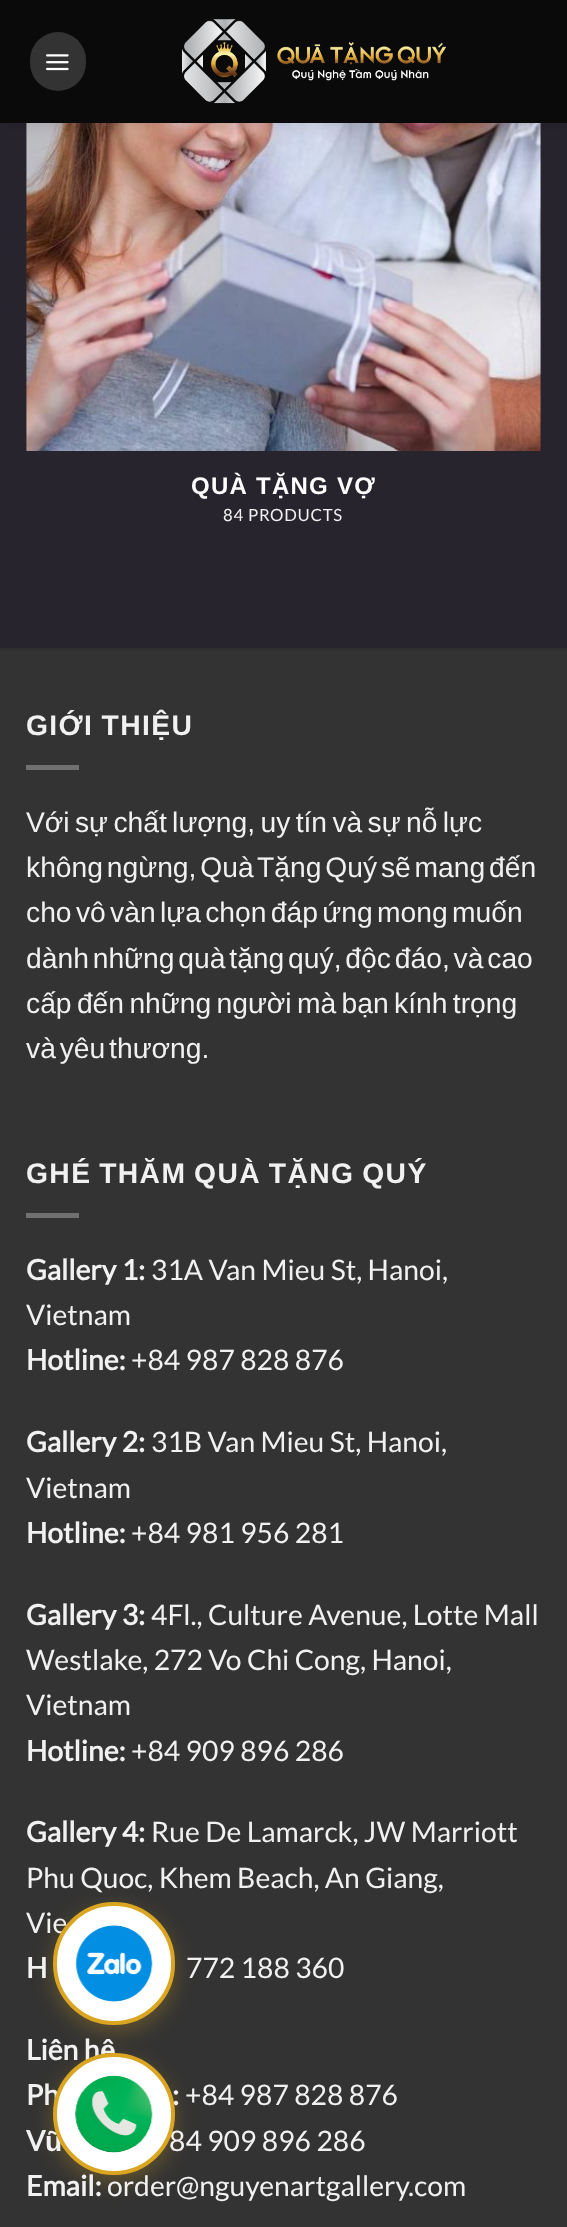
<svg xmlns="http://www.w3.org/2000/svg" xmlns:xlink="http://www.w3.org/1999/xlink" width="567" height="2227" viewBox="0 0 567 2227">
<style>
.cls-1{font:bold 24px Liberation Sans;letter-spacing:1.25px;fill:#ffffff}
.cls-2{font:16.75px Lato;letter-spacing:0.75px;fill:#f1f1f1}
.cls-3{font:bold 28.25px Liberation Sans;letter-spacing:1.4px;fill:#f1f1f1}
.cls-4{font:28.25px Liberation Sans;fill:#f1f1f1}
.cls-5{font:bold 28.25px Lato;fill:#f1f1f1}
.cls-6{font:28.25px Lato;fill:#f1f1f1}
.cls-7{font:bold 28.25px Liberation Sans;fill:#f1f1f1}
</style>
<rect width="100%" height="100%" fill="#27242e"/>
<image xlink:href="image2.png" x="26" y="123" width="515" height="328"/>
<rect fill="#000000" fill-opacity="0.15" filter="blur(9px)" x="2" y="2" width="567" height="122"/>
<rect fill="#0a0a0a" x="0" y="0" width="567" height="123"/>
<rect fill="#333333" x="30" y="32" width="56" height="59" rx="28"/>
<image xlink:href="image0.png" x="46" y="54" width="23" height="17"/>
<image xlink:href="image1.png" x="182" y="19" width="264" height="85"/>
<rect fill="#333333" x="0" y="650" width="567" height="1577"/>
<rect fill="#303030" x="0" y="648" width="567" height="2"/>
<rect fill="#707070" x="26" y="765" width="53" height="5"/>
<rect fill="#707070" x="26" y="1213" width="53" height="5"/>
<rect fill="#daa520" fill-opacity="0.3" filter="blur(10.5px)" x="53" y="1909" width="122" height="123" rx="61"/>
<rect fill="#daa520" fill-opacity="0.3" filter="blur(10.5px)" x="53" y="2060" width="122" height="122" rx="61"/>
<text class="cls-1" x="191" y="494">QUÀ TẶNG VỢ</text>
<text class="cls-2" x="223" y="521">84 PRODUCTS</text>
<text class="cls-3" x="26" y="735" word-spacing="-1">GIỚI THIỆU</text>
<text class="cls-4"><tspan x="26" y="832" word-spacing="-2.5">Với sự chất lượng, uy tín và sự nỗ lực</tspan><tspan x="26" y="877" word-spacing="-4">không ngừng, Quà Tặng Quý sẽ mang đến</tspan><tspan x="26" y="922" word-spacing="-3.5">cho vô vàn lựa chọn đáp ứng mong muốn</tspan><tspan x="26" y="968" word-spacing="-4">dành những quà tặng quý, độc đáo, và cao</tspan><tspan x="26" y="1013" word-spacing="-2.5">cấp đến những người mà bạn kính trọng</tspan><tspan x="26" y="1058" word-spacing="-4">và yêu thương.</tspan></text>
<text class="cls-3" x="26" y="1183" word-spacing="-1.5">GHÉ THĂM QUÀ TẶNG QUÝ</text>
<text class="cls-5" x="26" y="1280">Gallery 1:</text>
<text class="cls-6" x="151" y="1280">31A Van Mieu St, Hanoi,</text>
<text class="cls-6" x="26" y="1325">Vietnam</text>
<text class="cls-5" x="26" y="1370">Hotline:</text>
<text class="cls-6" x="131" y="1370">+84 987 828 876</text>
<text class="cls-5" x="26" y="1452">Gallery 2:</text>
<text class="cls-6" x="151" y="1452">31B Van Mieu St, Hanoi,</text>
<text class="cls-6" x="26" y="1498">Vietnam</text>
<text class="cls-5" x="26" y="1543">Hotline:</text>
<text class="cls-6" x="131" y="1543">+84 981 956 281</text>
<text class="cls-5" x="26" y="1625">Gallery 3:</text>
<text class="cls-6" x="151" y="1625">4Fl., Culture Avenue, Lotte Mall</text>
<text class="cls-6"><tspan x="26" y="1670">Westlake, 272 Vo Chi Cong, Hanoi,</tspan><tspan x="26" y="1715">Vietnam</tspan></text>
<text class="cls-5" x="26" y="1761">Hotline:</text>
<text class="cls-6" x="131" y="1761">+84 909 896 286</text>
<text class="cls-5" x="26" y="1842">Gallery 4:</text>
<text class="cls-6" x="151" y="1842">Rue De Lamarck, JW Marriott</text>
<text class="cls-6"><tspan x="26" y="1888">Phu Quoc, Khem Beach, An Giang,</tspan><tspan x="26" y="1933">Vie</tspan></text>
<text class="cls-5" x="26" y="1978">H</text>
<text class="cls-6" x="186" y="1978">772 188 360</text>
<text class="cls-5" x="26" y="2060">Liên h</text>
<text class="cls-7" x="100" y="2060">ệ</text>
<text class="cls-5" x="26" y="2105">Ph</text>
<text class="cls-5" x="172" y="2105">:</text>
<text class="cls-6" x="185" y="2105">+84 987 828 876</text>
<text class="cls-5" x="26" y="2151">V</text>
<text class="cls-7" x="45" y="2151">ũ</text>
<text class="cls-6" x="169" y="2151">84 909 896 286</text>
<text class="cls-5" x="26" y="2196">Email:</text>
<text class="cls-6" x="107" y="2196">order@nguyenartgallery.com</text>
<rect fill="#ffffff" stroke="#daa520" stroke-width="4" x="55" y="1904" width="118" height="119" rx="59"/>
<image xlink:href="image3.png" x="75" y="1925" width="78" height="77"/>
<circle fill="#ffffff" stroke="#daa520" stroke-width="4" cx="114" cy="2114" r="59"/>
<image xlink:href="image4.png" x="75" y="2075" width="78" height="78"/>
</svg>
